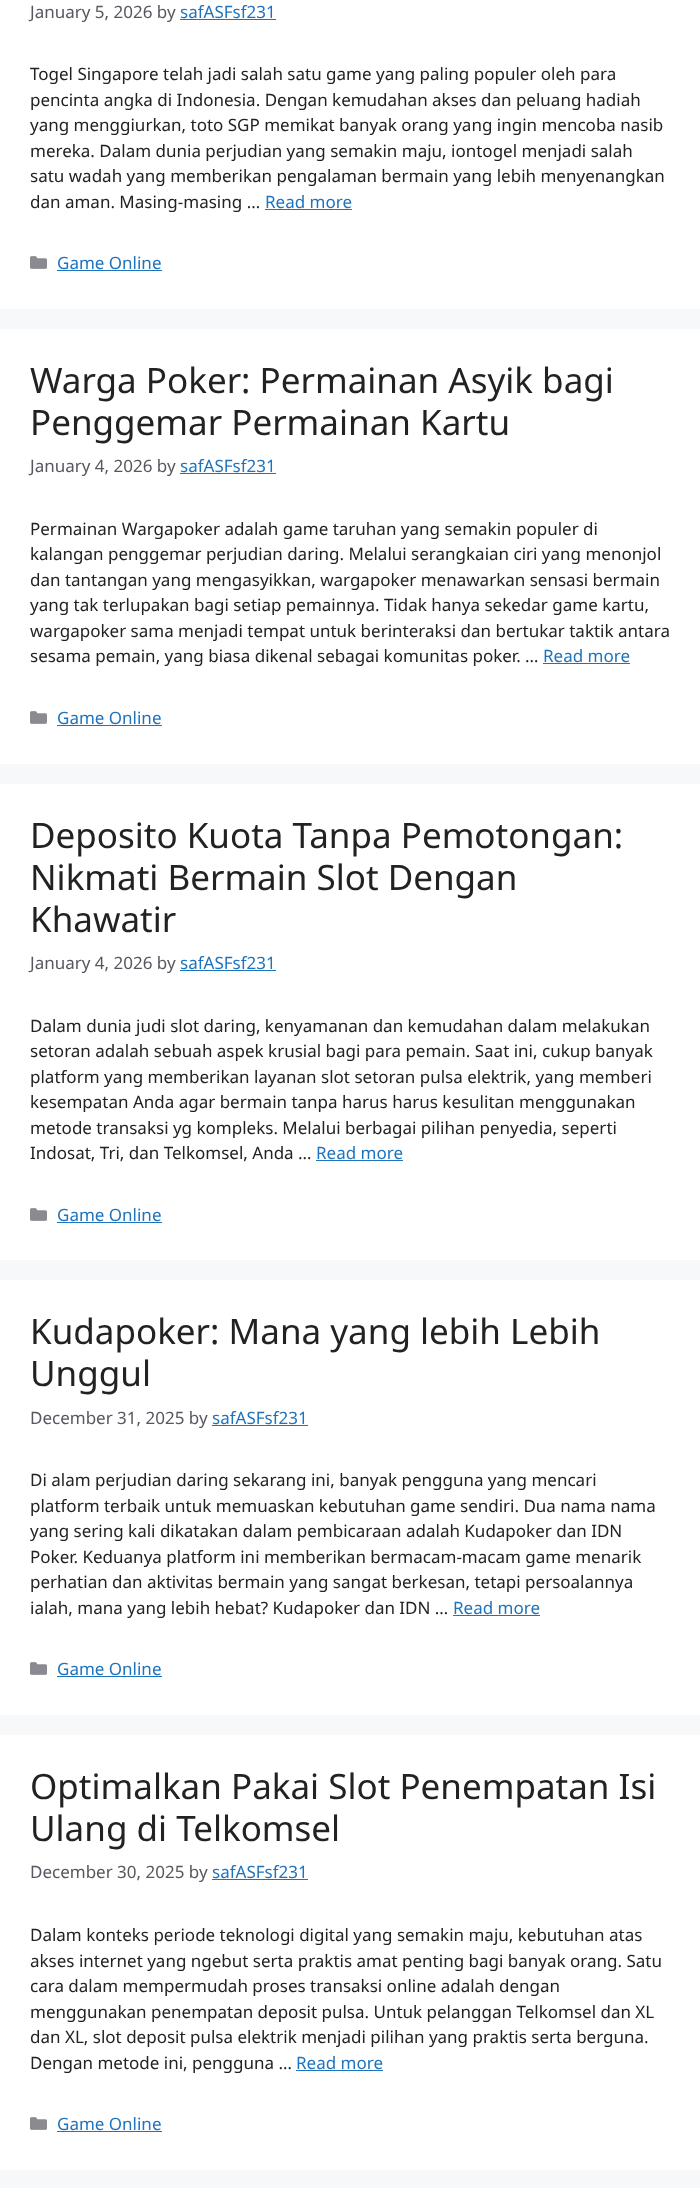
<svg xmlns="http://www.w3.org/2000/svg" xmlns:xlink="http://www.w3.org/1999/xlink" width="700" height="2188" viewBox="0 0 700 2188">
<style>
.cls-1{font:17px Noto Sans;fill:#575760}
.cls-2{font:17px Noto Sans;fill:#1e73be}
.cls-3{font:17px Noto Sans;fill:#222222}
.cls-4{font:35px Noto Sans;fill:#222222}
</style>
<rect width="100%" height="100%" fill="#f7f8f9"/>
<rect fill="#ffffff" x="0" y="0" width="700" height="309"/>
<rect fill="#1e73be" x="180" y="19" width="96" height="1"/>
<rect fill="#1e73be" x="265" y="209" width="87" height="1"/>
<image xlink:href="image0.png" x="30" y="256" width="17" height="13"/>
<rect fill="#1e73be" x="57" y="270" width="105" height="1"/>
<rect fill="#ffffff" x="0" y="329" width="700" height="435"/>
<rect fill="#1e73be" x="180" y="473" width="96" height="1"/>
<rect fill="#1e73be" x="543" y="663" width="87" height="1"/>
<image xlink:href="image0.png" x="30" y="711" width="17" height="13"/>
<rect fill="#1e73be" x="57" y="725" width="105" height="1"/>
<rect fill="#ffffff" x="0" y="784" width="700" height="476"/>
<rect fill="#1e73be" x="180" y="970" width="96" height="1"/>
<rect fill="#1e73be" x="316" y="1160" width="87" height="1"/>
<image xlink:href="image0.png" x="30" y="1208" width="17" height="13"/>
<rect fill="#1e73be" x="57" y="1222" width="105" height="1"/>
<rect fill="#ffffff" x="0" y="1280" width="700" height="435"/>
<rect fill="#1e73be" x="212" y="1425" width="96" height="1"/>
<rect fill="#1e73be" x="453" y="1615" width="87" height="1"/>
<image xlink:href="image0.png" x="30" y="1662" width="17" height="13"/>
<rect fill="#1e73be" x="57" y="1676" width="105" height="1"/>
<rect fill="#ffffff" x="0" y="1735" width="700" height="435"/>
<rect fill="#1e73be" x="212" y="1879" width="96" height="1"/>
<rect fill="#1e73be" x="296" y="2070" width="87" height="1"/>
<image xlink:href="image0.png" x="30" y="2117" width="17" height="13"/>
<rect fill="#1e73be" x="57" y="2131" width="105" height="1"/>
<text class="cls-1" x="30" y="18">January 5, 2026 by</text>
<text class="cls-2" x="180" y="18">safASFsf231</text>
<text class="cls-3"><tspan x="30" y="80">Togel Singapore telah jadi salah satu game yang paling populer oleh para</tspan><tspan x="30" y="106">pencinta angka di Indonesia. Dengan kemudahan akses dan peluang hadiah</tspan><tspan x="30" y="131">yang menggiurkan, toto SGP memikat banyak orang yang ingin mencoba nasib</tspan><tspan x="30" y="157">mereka. Dalam dunia perjudian yang semakin maju, iontogel menjadi salah</tspan><tspan x="30" y="182">satu wadah yang memberikan pengalaman bermain yang lebih menyenangkan</tspan><tspan x="30" y="208">dan aman. Masing-masing …</tspan></text>
<text class="cls-2" x="265" y="208">Read more</text>
<text class="cls-2" x="57" y="269">Game Online</text>
<text class="cls-4"><tspan x="30" y="393">Warga Poker: Permainan Asyik bagi</tspan><tspan x="30" y="435">Penggemar Permainan Kartu</tspan></text>
<text class="cls-1" x="30" y="472">January 4, 2026 by</text>
<text class="cls-2" x="180" y="472">safASFsf231</text>
<text class="cls-3"><tspan x="30" y="535">Permainan Wargapoker adalah game taruhan yang semakin populer di</tspan><tspan x="30" y="560">kalangan penggemar perjudian daring. Melalui serangkaian ciri yang menonjol</tspan><tspan x="30" y="586">dan tantangan yang mengasyikkan, wargapoker menawarkan sensasi bermain</tspan><tspan x="30" y="611">yang tak terlupakan bagi setiap pemainnya. Tidak hanya sekedar game kartu,</tspan><tspan x="30" y="637">wargapoker sama menjadi tempat untuk berinteraksi dan bertukar taktik antara</tspan><tspan x="30" y="662">sesama pemain, yang biasa dikenal sebagai komunitas poker. …</tspan></text>
<text class="cls-2" x="543" y="662">Read more</text>
<text class="cls-2" x="57" y="724">Game Online</text>
<text class="cls-4"><tspan x="30" y="848">Deposito Kuota Tanpa Pemotongan:</tspan><tspan x="30" y="890">Nikmati Bermain Slot Dengan</tspan><tspan x="30" y="932">Khawatir</tspan></text>
<text class="cls-1" x="30" y="969">January 4, 2026 by</text>
<text class="cls-2" x="180" y="969">safASFsf231</text>
<text class="cls-3"><tspan x="30" y="1032">Dalam dunia judi slot daring, kenyamanan dan kemudahan dalam melakukan</tspan><tspan x="30" y="1057">setoran adalah sebuah aspek krusial bagi para pemain. Saat ini, cukup banyak</tspan><tspan x="30" y="1083">platform yang memberikan layanan slot setoran pulsa elektrik, yang memberi</tspan><tspan x="30" y="1108">kesempatan Anda agar bermain tanpa harus harus kesulitan menggunakan</tspan><tspan x="30" y="1134">metode transaksi yg kompleks. Melalui berbagai pilihan penyedia, seperti</tspan><tspan x="30" y="1159">Indosat, Tri, dan Telkomsel, Anda …</tspan></text>
<text class="cls-2" x="316" y="1159">Read more</text>
<text class="cls-2" x="57" y="1221">Game Online</text>
<text class="cls-4"><tspan x="30" y="1344">Kudapoker: Mana yang lebih Lebih</tspan><tspan x="30" y="1386">Unggul</tspan></text>
<text class="cls-1" x="30" y="1424">December 31, 2025 by</text>
<text class="cls-2" x="212" y="1424">safASFsf231</text>
<text class="cls-3"><tspan x="30" y="1486">Di alam perjudian daring sekarang ini, banyak pengguna yang mencari</tspan><tspan x="30" y="1512">platform terbaik untuk memuaskan kebutuhan game sendiri. Dua nama nama</tspan><tspan x="30" y="1537">yang sering kali dikatakan dalam pembicaraan adalah Kudapoker dan IDN</tspan><tspan x="30" y="1563">Poker. Keduanya platform ini memberikan bermacam-macam game menarik</tspan><tspan x="30" y="1588">perhatian dan aktivitas bermain yang sangat berkesan, tetapi persoalannya</tspan><tspan x="30" y="1614">ialah, mana yang lebih hebat? Kudapoker dan IDN …</tspan></text>
<text class="cls-2" x="453" y="1614">Read more</text>
<text class="cls-2" x="57" y="1675">Game Online</text>
<text class="cls-4"><tspan x="30" y="1799">Optimalkan Pakai Slot Penempatan Isi</tspan><tspan x="30" y="1841">Ulang di Telkomsel</tspan></text>
<text class="cls-1" x="30" y="1878">December 30, 2025 by</text>
<text class="cls-2" x="212" y="1878">safASFsf231</text>
<text class="cls-3"><tspan x="30" y="1941">Dalam konteks periode teknologi digital yang semakin maju, kebutuhan atas</tspan><tspan x="30" y="1967">akses internet yang ngebut serta praktis amat penting bagi banyak orang. Satu</tspan><tspan x="30" y="1992">cara dalam mempermudah proses transaksi online adalah dengan</tspan><tspan x="30" y="2018">menggunakan penempatan deposit pulsa. Untuk pelanggan Telkomsel dan XL</tspan><tspan x="30" y="2043">dan XL, slot deposit pulsa elektrik menjadi pilihan yang praktis serta berguna.</tspan><tspan x="30" y="2069">Dengan metode ini, pengguna …</tspan></text>
<text class="cls-2" x="296" y="2069">Read more</text>
<text class="cls-2" x="57" y="2130">Game Online</text>
</svg>
